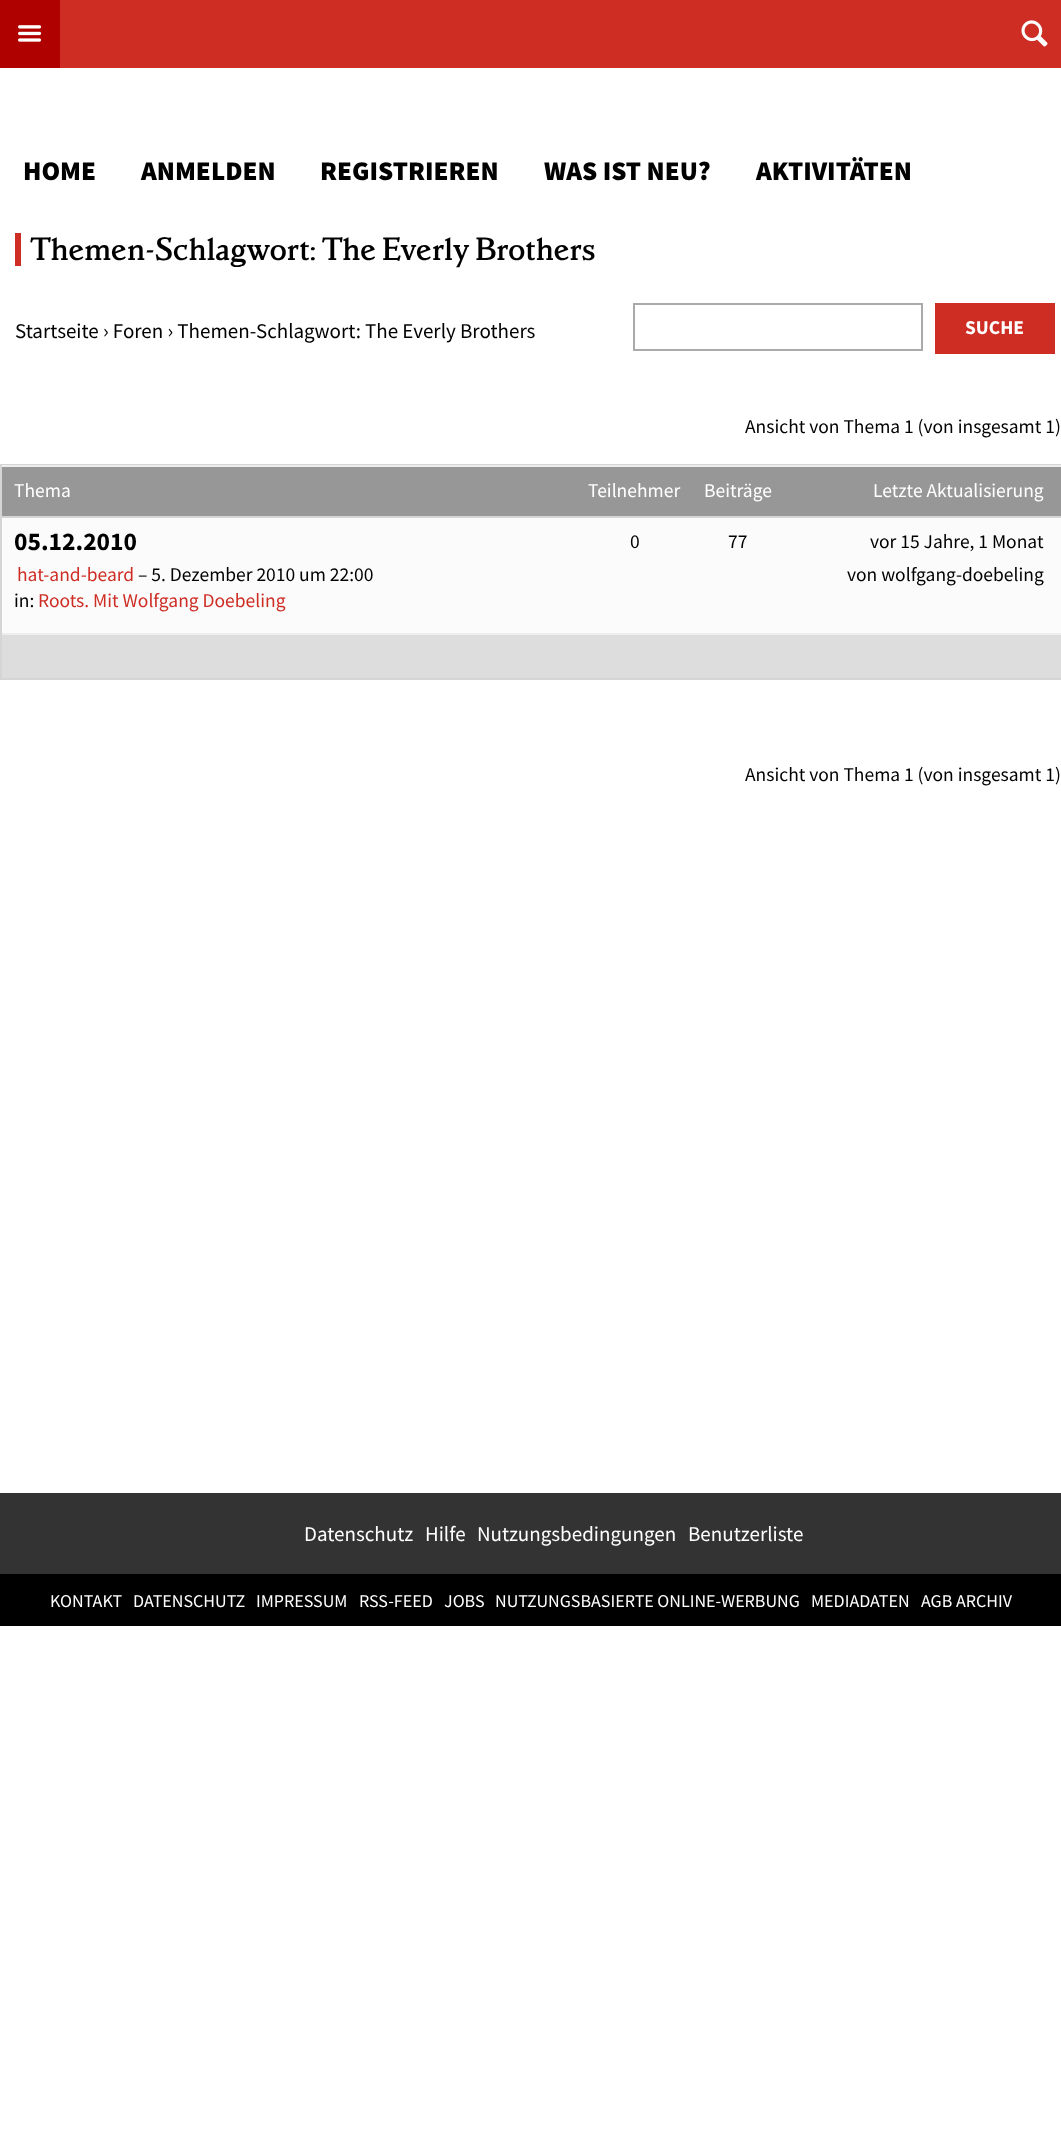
<svg xmlns="http://www.w3.org/2000/svg" xmlns:xlink="http://www.w3.org/1999/xlink" width="1061" height="2145" viewBox="0 0 1061 2145">
<style>
.cls-1{font:900 27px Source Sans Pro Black;fill:#000000}
.cls-2{font:500 30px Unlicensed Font;fill:#000000}
.cls-3{font:21px Source Sans Pro;fill:#000000}
.cls-4{font:bold 19.5px Source Sans Pro;fill:#ffffff}
.cls-5{font:19.5px Source Sans Pro;fill:#000000}
.cls-6{font:19.5px Source Sans Pro;fill:#ffffff}
.cls-7{font:bold 25.5px Source Sans Pro;fill:#000000}
.cls-8{font:19.5px Source Sans Pro;fill:#ce2d24}
.cls-9{font:21px Source Sans Pro;fill:#ffffff}
.cls-10{font:18px Source Sans Pro;fill:#ffffff}
</style>
<rect width="100%" height="100%" fill="#ffffff"/>
<rect fill="#ce2d24" x="60" y="0" width="1001" height="68"/>
<rect fill="#b00101" x="0" y="0" width="60" height="68"/>
<image xlink:href="image0.png" x="18" y="25" width="24" height="17"/>
<image xlink:href="image1.png" x="1021" y="20" width="27" height="27"/>
<rect fill="#ce2d24" x="15" y="233" width="6" height="33"/>
<rect fill="none" stroke="#aaaaaa" stroke-width="2" x="634" y="304" width="288" height="46"/>
<rect fill="#ce2d24" x="935" y="303" width="120" height="51"/>
<rect fill="none" stroke="#d5d5d5" stroke-width="2" x="1" y="465" width="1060" height="214"/>
<rect fill="#979797" x="2" y="467" width="1059" height="49"/>
<rect fill="#eeeeee" x="2" y="465" width="1059" height="2"/>
<rect fill="#fbfbfb" x="2" y="518" width="1059" height="115"/>
<rect fill="#d5d5d5" x="2" y="516" width="1059" height="2"/>
<rect fill="#dddddd" x="2" y="635" width="1059" height="43"/>
<rect fill="#eeeeee" x="2" y="633" width="1059" height="2"/>
<rect fill="#000000" x="0" y="1574" width="1061" height="52"/>
<rect fill="#333333" x="0" y="1493" width="1061" height="81"/>
<text class="cls-1" x="23" y="180">HOME</text>
<text class="cls-1" x="141" y="180">ANMELDEN</text>
<text class="cls-1" x="320" y="180">REGISTRIEREN</text>
<text class="cls-1" x="544" y="180">WAS IST NEU?</text>
<text class="cls-1" x="756" y="180">AKTIVITÄTEN</text>
<text class="cls-2" x="30" y="260">Themen-Schlagwort: The Everly Brothers</text>
<text class="cls-3" x="15" y="338">Startseite › Foren › Themen-Schlagwort: The Everly Brothers</text>
<text class="cls-4" x="965" y="334">SUCHE</text>
<text class="cls-5" x="745" y="433">Ansicht von Thema 1 (von insgesamt 1)</text>
<text class="cls-6" x="14" y="497">Thema</text>
<text class="cls-6" x="588" y="497">Teilnehmer</text>
<text class="cls-6" x="704" y="497">Beiträge</text>
<text class="cls-6" x="873" y="497">Letzte Aktualisierung</text>
<text class="cls-7" x="14" y="550">05.12.2010</text>
<text class="cls-8" x="17" y="581">hat-and-beard</text>
<text class="cls-5" x="138" y="581">– 5. Dezember 2010 um 22:00</text>
<text class="cls-5" x="14" y="607">in:</text>
<text class="cls-8" x="38" y="607">Roots. Mit Wolfgang Doebeling</text>
<text class="cls-5" x="630" y="548">0</text>
<text class="cls-5" x="728" y="548">77</text>
<text class="cls-5" x="870" y="548">vor 15 Jahre, 1 Monat</text>
<text class="cls-5" x="847" y="581">von wolfgang-doebeling</text>
<text class="cls-5" x="745" y="781">Ansicht von Thema 1 (von insgesamt 1)</text>
<text class="cls-9" x="304" y="1541">Datenschutz</text>
<text class="cls-9" x="425" y="1541">Hilfe</text>
<text class="cls-9" x="477" y="1541">Nutzungsbedingungen</text>
<text class="cls-9" x="688" y="1541">Benutzerliste</text>
<text class="cls-10" x="50" y="1607">KONTAKT</text>
<text class="cls-10" x="133" y="1607">DATENSCHUTZ</text>
<text class="cls-10" x="256" y="1607">IMPRESSUM</text>
<text class="cls-10" x="359" y="1607">RSS-FEED</text>
<text class="cls-10" x="444" y="1607">JOBS</text>
<text class="cls-10" x="495" y="1607">NUTZUNGSBASIERTE ONLINE-WERBUNG</text>
<text class="cls-10" x="811" y="1607">MEDIADATEN</text>
<text class="cls-10" x="921" y="1607">AGB ARCHIV</text>
</svg>
